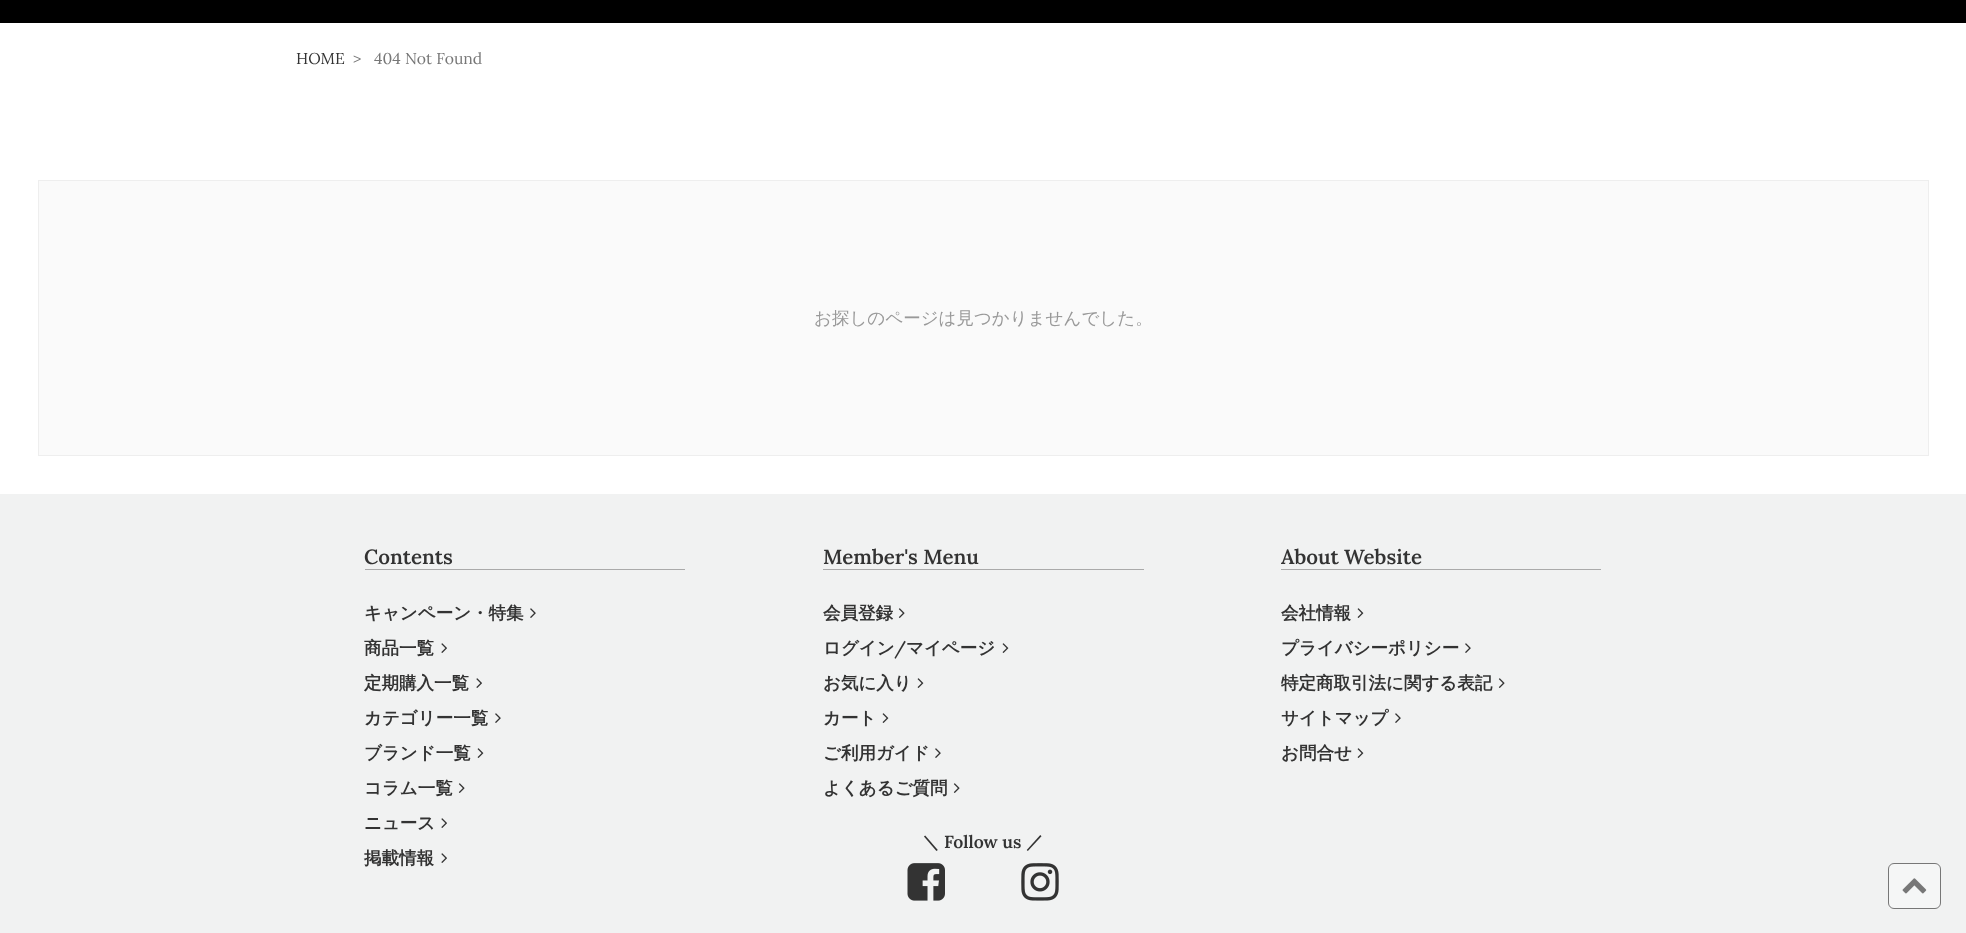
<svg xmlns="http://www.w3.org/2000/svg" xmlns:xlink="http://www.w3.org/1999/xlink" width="1966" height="933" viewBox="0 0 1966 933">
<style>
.cls-1{font:15.75px Lora;fill:#333333}
.cls-2{font:15.75px Lora;fill:#777777}
.cls-3{font:500 17.5px WenQuanYi Zen Hei;fill:#999999}
.cls-4{font:600 20.5px Lora;fill:#333333}
.cls-5{font:bold 17.5px WenQuanYi Zen Hei;fill:#333333}
.cls-6{font:600 17.5px Lora;fill:#333333}
</style>
<rect width="100%" height="100%" fill="#ffffff"/>
<rect fill="#000000" x="0" y="0" width="1966" height="23"/>
<rect fill="#fafafa" stroke="#eeeeee" x="38.5" y="180.5" width="1890" height="275"/>
<rect fill="#f1f2f2" x="0" y="494" width="1966" height="439"/>
<rect fill="#aaaaaa" x="365" y="569" width="320" height="1"/>
<image xlink:href="image0.png" x="530" y="608" width="6" height="10"/>
<image xlink:href="image1.png" x="441" y="643" width="6" height="10"/>
<image xlink:href="image1.png" x="476" y="678" width="6" height="10"/>
<image xlink:href="image0.png" x="495" y="713" width="6" height="10"/>
<image xlink:href="image2.png" x="477" y="748" width="7" height="10"/>
<image xlink:href="image3.png" x="458" y="783" width="7" height="10"/>
<image xlink:href="image1.png" x="441" y="818" width="6" height="10"/>
<image xlink:href="image1.png" x="441" y="853" width="6" height="10"/>
<rect fill="#aaaaaa" x="823" y="569" width="321" height="1"/>
<image xlink:href="image3.png" x="898" y="608" width="7" height="10"/>
<image xlink:href="image2.png" x="1002" y="643" width="7" height="10"/>
<image xlink:href="image2.png" x="917" y="678" width="7" height="10"/>
<image xlink:href="image2.png" x="882" y="713" width="7" height="10"/>
<image xlink:href="image0.png" x="935" y="748" width="6" height="10"/>
<image xlink:href="image3.png" x="953" y="783" width="7" height="10"/>
<image xlink:href="image4.png" x="907" y="863" width="38" height="38"/>
<image xlink:href="image5.png" x="1021" y="863" width="38" height="38"/>
<rect fill="#aaaaaa" x="1281" y="569" width="320" height="1"/>
<image xlink:href="image2.png" x="1357" y="608" width="7" height="10"/>
<image xlink:href="image0.png" x="1465" y="643" width="6" height="10"/>
<image xlink:href="image3.png" x="1498" y="678" width="7" height="10"/>
<image xlink:href="image0.png" x="1395" y="713" width="6" height="10"/>
<image xlink:href="image2.png" x="1357" y="748" width="7" height="10"/>
<rect fill="#f5f6f6" stroke="#777777" x="1888.5" y="863.5" width="52" height="45" rx="5.5"/>
<image xlink:href="image6.png" x="1902" y="878" width="25" height="16"/>
<text class="cls-1" x="296" y="64">HOME</text>
<text class="cls-2" x="353" y="64">&gt;</text>
<text class="cls-2" x="374" y="64">404 Not Found</text>
<text class="cls-3" x="814" y="324">お探しのページは見つかりませんでした。</text>
<text class="cls-4" x="364" y="564">Contents</text>
<text class="cls-5" x="364" y="619">キャンペーン・特集</text>
<text class="cls-5" x="364" y="654">商品一覧</text>
<text class="cls-5" x="364" y="689">定期購入一覧</text>
<text class="cls-5" x="364" y="724">カテゴリー一覧</text>
<text class="cls-5" x="364" y="759">ブランド一覧</text>
<text class="cls-5" x="364" y="794">コラム一覧</text>
<text class="cls-5" x="364" y="829">ニュース</text>
<text class="cls-5" x="364" y="864">掲載情報</text>
<text class="cls-4" x="823" y="564">Member's Menu</text>
<text class="cls-5" x="823" y="619">会員登録</text>
<text class="cls-5" x="823" y="654">ログイン</text>
<text class="cls-6" x="894" y="654">/</text>
<text class="cls-5" x="906" y="654">マイページ</text>
<text class="cls-5" x="823" y="689">お気に入り</text>
<text class="cls-5" x="823" y="724">カート</text>
<text class="cls-5" x="823" y="759">ご利用ガイド</text>
<text class="cls-5" x="823" y="794">よくあるご質問</text>
<text class="cls-5" x="922" y="848">＼</text>
<text class="cls-6" x="944" y="848">Follow us</text>
<text class="cls-5" x="1026" y="848">／</text>
<text class="cls-4" x="1281" y="564">About Website</text>
<text class="cls-5" x="1281" y="619">会社情報</text>
<text class="cls-5" x="1281" y="654">プライバシーポリシー</text>
<text class="cls-5" x="1281" y="689">特定商取引法に関する表記</text>
<text class="cls-5" x="1281" y="724">サイトマップ</text>
<text class="cls-5" x="1281" y="759">お問合せ</text>
</svg>
